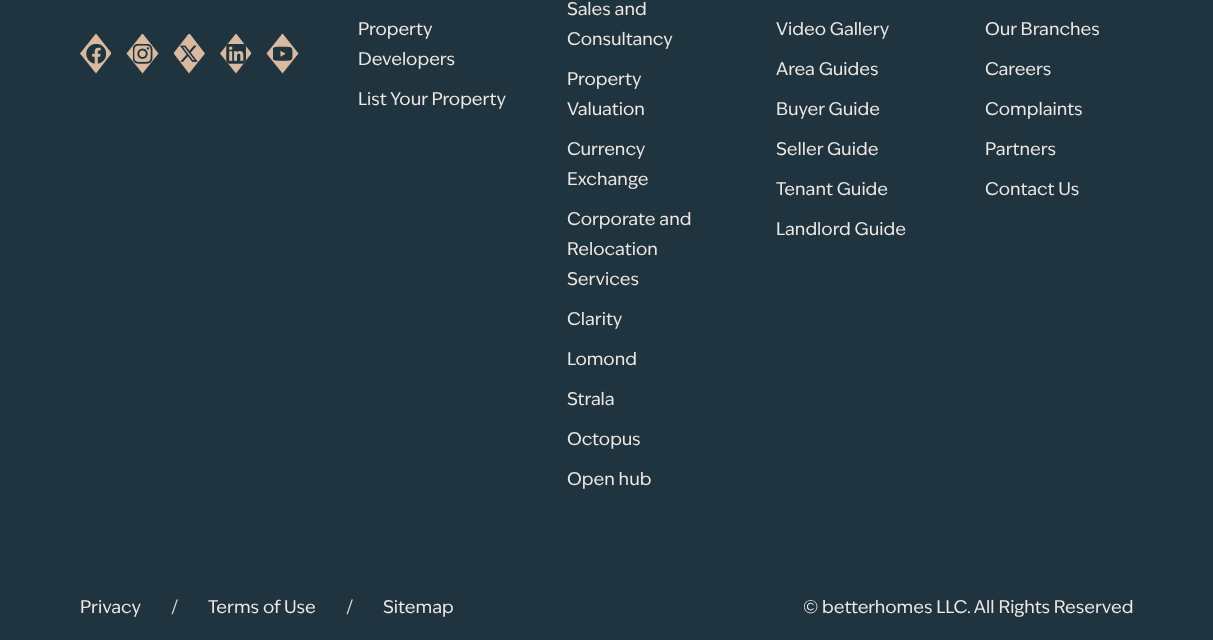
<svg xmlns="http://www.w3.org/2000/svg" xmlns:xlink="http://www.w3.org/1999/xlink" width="1213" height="640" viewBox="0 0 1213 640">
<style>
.cls-1{font:17.5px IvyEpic;fill:#ede8e4}
.cls-2{font:17.5px IvyEpic;fill:#d8d6d4}
</style>
<rect width="100%" height="100%" fill="#1f343f"/>
<path fill="#d9b9a0" d="M111 54L96 73.5L80 53.5L95.5 34H96.5L111 52.5Z"/>
<image xlink:href="image0.png" x="86" y="44" width="20" height="20"/>
<path fill="#d9b9a0" d="M143 34L158.5 53.5L142.5 73.5L126.5 53.5L142 34Z"/>
<image xlink:href="image1.png" x="133" y="44" width="20" height="20"/>
<path fill="#d9b9a0" d="M174 52.5L188.5 34H190L205 53.5L189 73.5L174 54Z"/>
<image xlink:href="image2.png" x="180" y="45" width="18" height="17"/>
<path fill="#d9b9a0" d="M251 54L236 73.5L220 53.5L235.5 34H236.5L251 52.5Z"/>
<image xlink:href="image3.png" x="226" y="44" width="20" height="20"/>
<path fill="#d9b9a0" d="M283 34L298.5 53.5L282.5 73.5L266.5 53.5L282 34Z"/>
<image xlink:href="image4.png" x="273" y="46" width="20" height="15"/>
<text class="cls-1"><tspan x="358" y="35">Property</tspan><tspan x="358" y="65">Developers</tspan></text>
<text class="cls-1" x="358" y="105">List Your Property</text>
<text class="cls-1"><tspan x="567" y="15">Sales and</tspan><tspan x="567" y="45">Consultancy</tspan></text>
<text class="cls-1"><tspan x="567" y="85">Property</tspan><tspan x="567" y="115">Valuation</tspan></text>
<text class="cls-1"><tspan x="567" y="155">Currency</tspan><tspan x="567" y="185">Exchange</tspan></text>
<text class="cls-1"><tspan x="567" y="225">Corporate and</tspan><tspan x="567" y="255">Relocation</tspan><tspan x="567" y="285">Services</tspan></text>
<text class="cls-1" x="567" y="325">Clarity</text>
<text class="cls-1" x="567" y="365">Lomond</text>
<text class="cls-1" x="567" y="405">Strala</text>
<text class="cls-1" x="567" y="445">Octopus</text>
<text class="cls-1" x="567" y="485">Open hub</text>
<text class="cls-1" x="776" y="35">Video Gallery</text>
<text class="cls-1" x="776" y="75">Area Guides</text>
<text class="cls-1" x="776" y="115">Buyer Guide</text>
<text class="cls-1" x="776" y="155">Seller Guide</text>
<text class="cls-1" x="776" y="195">Tenant Guide</text>
<text class="cls-1" x="776" y="235">Landlord Guide</text>
<text class="cls-1" x="985" y="35">Our Branches</text>
<text class="cls-1" x="985" y="75">Careers</text>
<text class="cls-1" x="985" y="115">Complaints</text>
<text class="cls-1" x="985" y="155">Partners</text>
<text class="cls-1" x="985" y="195">Contact Us</text>
<text class="cls-1" x="80" y="613">Privacy</text>
<text class="cls-2" x="171" y="613">/</text>
<text class="cls-1" x="208" y="613">Terms of Use</text>
<text class="cls-2" x="346" y="613">/</text>
<text class="cls-1" x="383" y="613">Sitemap</text>
<text class="cls-1" x="803" y="613">© betterhomes LLC. All Rights Reserved</text>
</svg>
